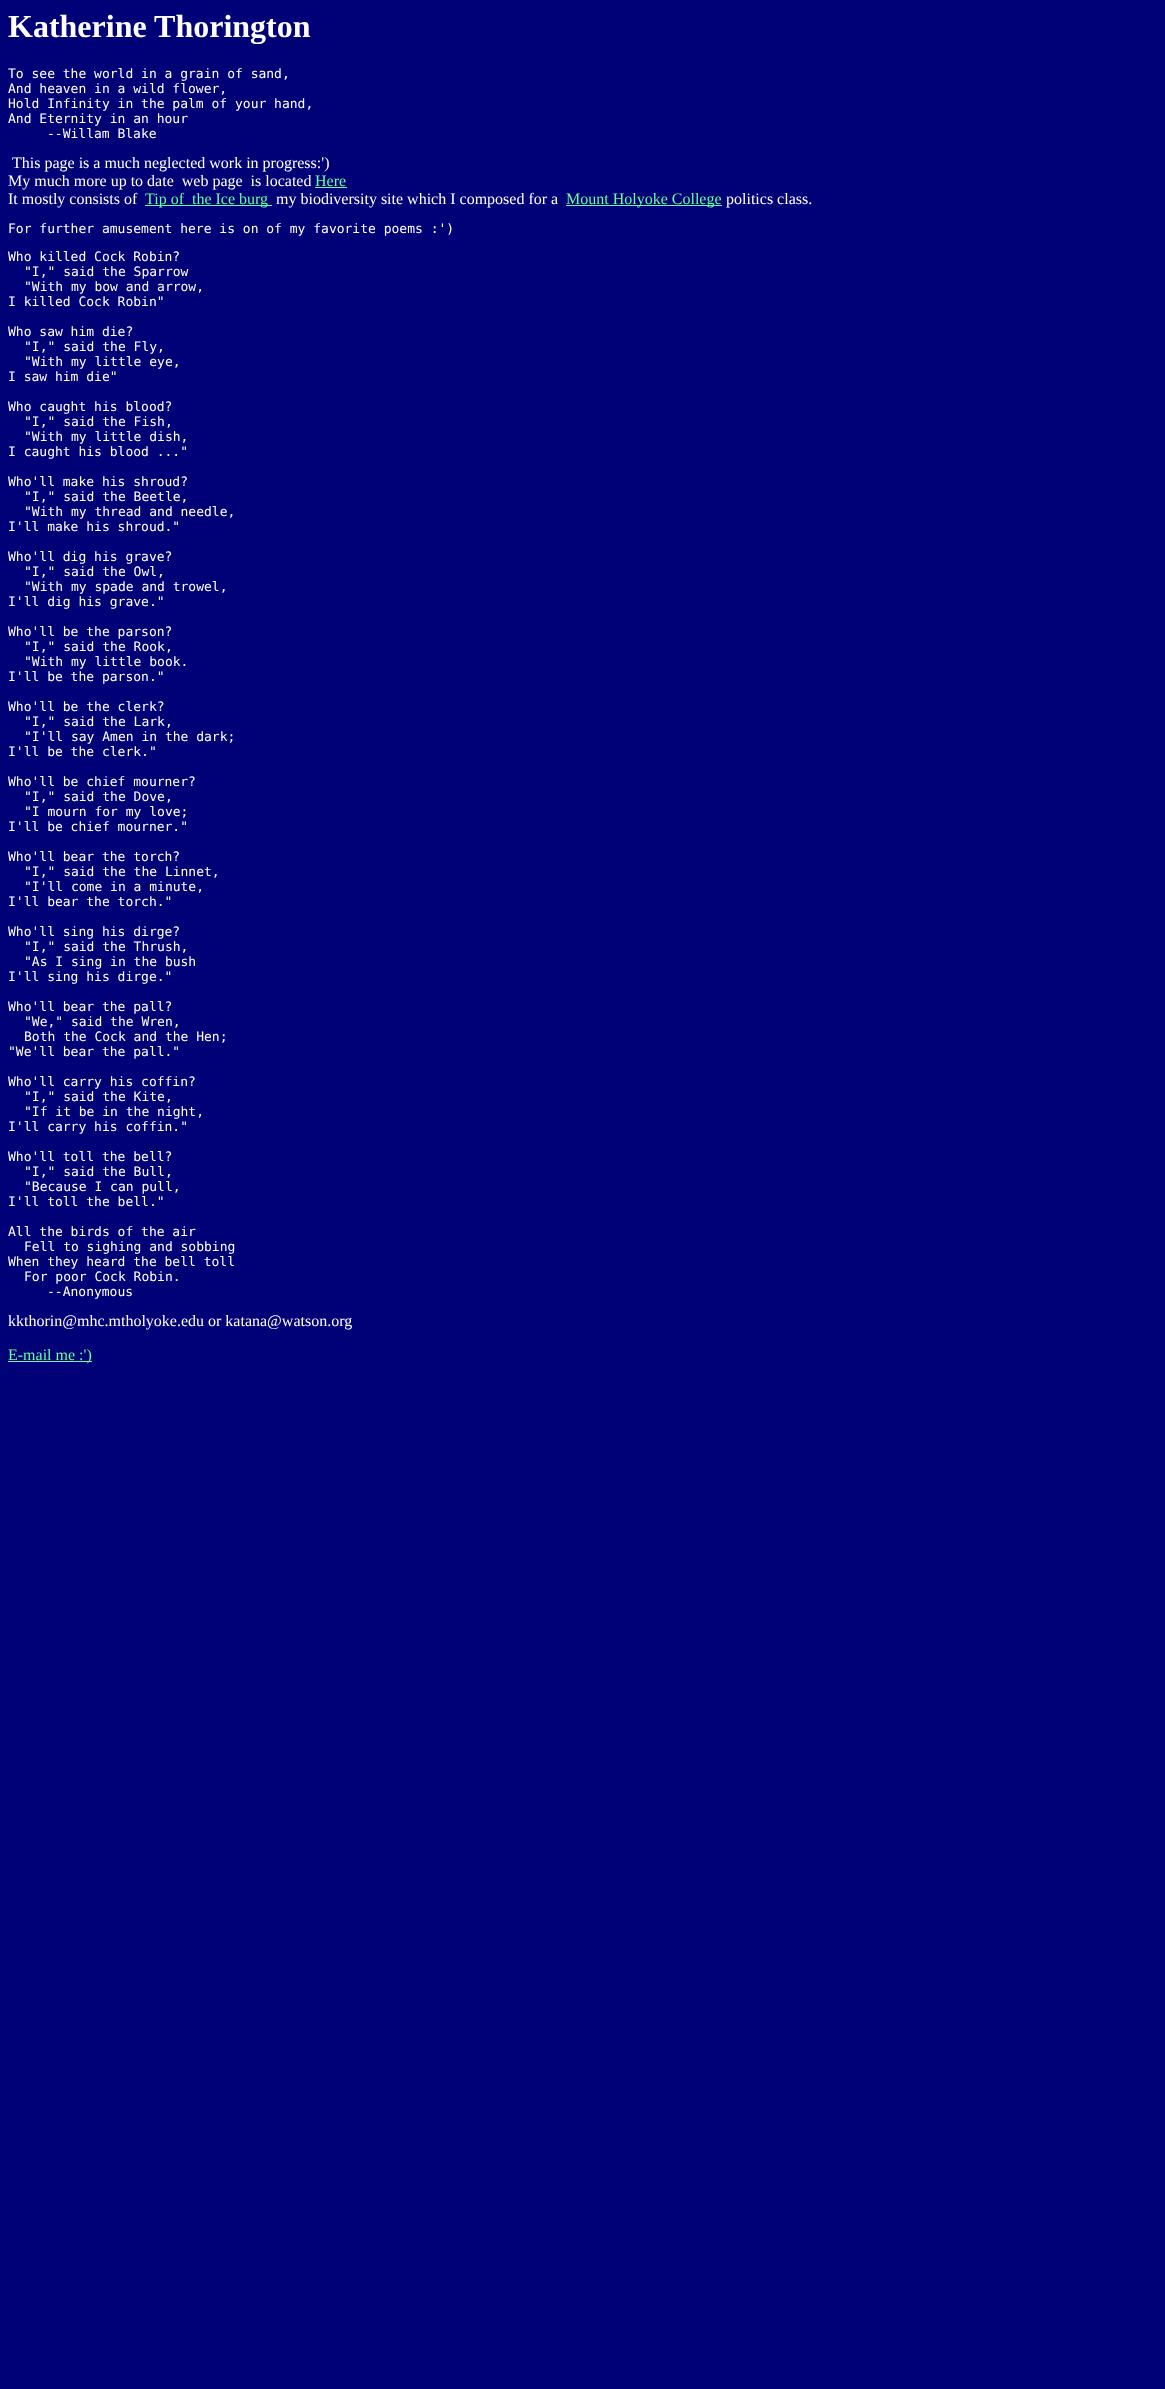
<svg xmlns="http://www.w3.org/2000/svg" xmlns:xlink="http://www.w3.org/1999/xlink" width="1165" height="2389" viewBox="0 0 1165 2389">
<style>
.cls-1{font:bold 32px Liberation Serif;fill:#ffffff}
.cls-2{font:13px DejaVu Sans Mono;fill:#ffffff}
.cls-3{font:16px Liberation Serif;fill:#ffffff}
.cls-4{font:16px Liberation Serif;fill:#66ff99}
</style>
<rect width="100%" height="100%" fill="#000077"/>
<rect fill="#66ff99" x="315" y="187" width="32" height="1"/>
<rect fill="#66ff99" x="145" y="205" width="127" height="1"/>
<rect fill="#66ff99" x="566" y="205" width="156" height="1"/>
<rect fill="#66ff99" x="8" y="1361" width="84" height="1"/>
<text class="cls-1" x="8" y="37">Katherine Thorington</text>
<text class="cls-2"><tspan x="8" y="78">To see the world in a grain of sand,</tspan><tspan x="8" y="93">And heaven in a wild flower,</tspan><tspan x="8" y="108">Hold Infinity in the palm of your hand,</tspan><tspan x="8" y="123">And Eternity in an hour</tspan></text>
<text class="cls-2" x="47" y="138">--Willam Blake</text>
<text class="cls-3" x="12" y="168">This page is a much neglected work in progress:')</text>
<text class="cls-3" xml:space="preserve" x="8" y="186">My much more up to date  web page  is located</text>
<text class="cls-4" x="315" y="186">Here</text>
<text class="cls-3" x="8" y="204">It mostly consists of</text>
<text class="cls-4" xml:space="preserve" x="145" y="204">Tip of  the Ice burg</text>
<text class="cls-3" x="276" y="204">my biodiversity site which I composed for a</text>
<text class="cls-4" x="566" y="204">Mount Holyoke College</text>
<text class="cls-3" x="726" y="204">politics class.</text>
<text class="cls-2" x="8" y="233">For further amusement here is on of my favorite poems :')</text>
<text class="cls-2" x="8" y="261">Who killed Cock Robin?</text>
<text class="cls-2"><tspan x="24" y="276">"I," said the Sparrow</tspan><tspan x="24" y="291">"With my bow and arrow,</tspan></text>
<text class="cls-2" x="8" y="306">I killed Cock Robin"</text>
<text class="cls-2" x="8" y="336">Who saw him die?</text>
<text class="cls-2"><tspan x="24" y="351">"I," said the Fly,</tspan><tspan x="24" y="366">"With my little eye,</tspan></text>
<text class="cls-2" x="8" y="381">I saw him die"</text>
<text class="cls-2" x="8" y="411">Who caught his blood?</text>
<text class="cls-2"><tspan x="24" y="426">"I," said the Fish,</tspan><tspan x="24" y="441">"With my little dish,</tspan></text>
<text class="cls-2" x="8" y="456">I caught his blood ..."</text>
<text class="cls-2" x="8" y="486">Who'll make his shroud?</text>
<text class="cls-2"><tspan x="24" y="501">"I," said the Beetle,</tspan><tspan x="24" y="516">"With my thread and needle,</tspan></text>
<text class="cls-2" x="8" y="531">I'll make his shroud."</text>
<text class="cls-2" x="8" y="561">Who'll dig his grave?</text>
<text class="cls-2"><tspan x="24" y="576">"I," said the Owl,</tspan><tspan x="24" y="591">"With my spade and trowel,</tspan></text>
<text class="cls-2" x="8" y="606">I'll dig his grave."</text>
<text class="cls-2" x="8" y="636">Who'll be the parson?</text>
<text class="cls-2"><tspan x="24" y="651">"I," said the Rook,</tspan><tspan x="24" y="666">"With my little book.</tspan></text>
<text class="cls-2" x="8" y="681">I'll be the parson."</text>
<text class="cls-2" x="8" y="711">Who'll be the clerk?</text>
<text class="cls-2"><tspan x="24" y="726">"I," said the Lark,</tspan><tspan x="24" y="741">"I'll say Amen in the dark;</tspan></text>
<text class="cls-2" x="8" y="756">I'll be the clerk."</text>
<text class="cls-2" x="8" y="786">Who'll be chief mourner?</text>
<text class="cls-2"><tspan x="24" y="801">"I," said the Dove,</tspan><tspan x="24" y="816">"I mourn for my love;</tspan></text>
<text class="cls-2" x="8" y="831">I'll be chief mourner."</text>
<text class="cls-2" x="8" y="861">Who'll bear the torch?</text>
<text class="cls-2"><tspan x="24" y="876">"I," said the the Linnet,</tspan><tspan x="24" y="891">"I'll come in a minute,</tspan></text>
<text class="cls-2" x="8" y="906">I'll bear the torch."</text>
<text class="cls-2" x="8" y="936">Who'll sing his dirge?</text>
<text class="cls-2"><tspan x="24" y="951">"I," said the Thrush,</tspan><tspan x="24" y="966">"As I sing in the bush</tspan></text>
<text class="cls-2" x="8" y="981">I'll sing his dirge."</text>
<text class="cls-2" x="8" y="1011">Who'll bear the pall?</text>
<text class="cls-2"><tspan x="24" y="1026">"We," said the Wren,</tspan><tspan x="24" y="1041">Both the Cock and the Hen;</tspan></text>
<text class="cls-2" x="8" y="1056">"We'll bear the pall."</text>
<text class="cls-2" x="8" y="1086">Who'll carry his coffin?</text>
<text class="cls-2"><tspan x="24" y="1101">"I," said the Kite,</tspan><tspan x="24" y="1116">"If it be in the night,</tspan></text>
<text class="cls-2" x="8" y="1131">I'll carry his coffin."</text>
<text class="cls-2" x="8" y="1161">Who'll toll the bell?</text>
<text class="cls-2"><tspan x="24" y="1176">"I," said the Bull,</tspan><tspan x="24" y="1191">"Because I can pull,</tspan></text>
<text class="cls-2" x="8" y="1206">I'll toll the bell."</text>
<text class="cls-2" x="8" y="1236">All the birds of the air</text>
<text class="cls-2" x="24" y="1251">Fell to sighing and sobbing</text>
<text class="cls-2" x="8" y="1266">When they heard the bell toll</text>
<text class="cls-2" x="24" y="1281">For poor Cock Robin.</text>
<text class="cls-2" x="47" y="1296">--Anonymous</text>
<text class="cls-3" x="8" y="1326">kkthorin@mhc.mtholyoke.edu or katana@watson.org</text>
<text class="cls-4" x="8" y="1360">E-mail me :')</text>
</svg>
